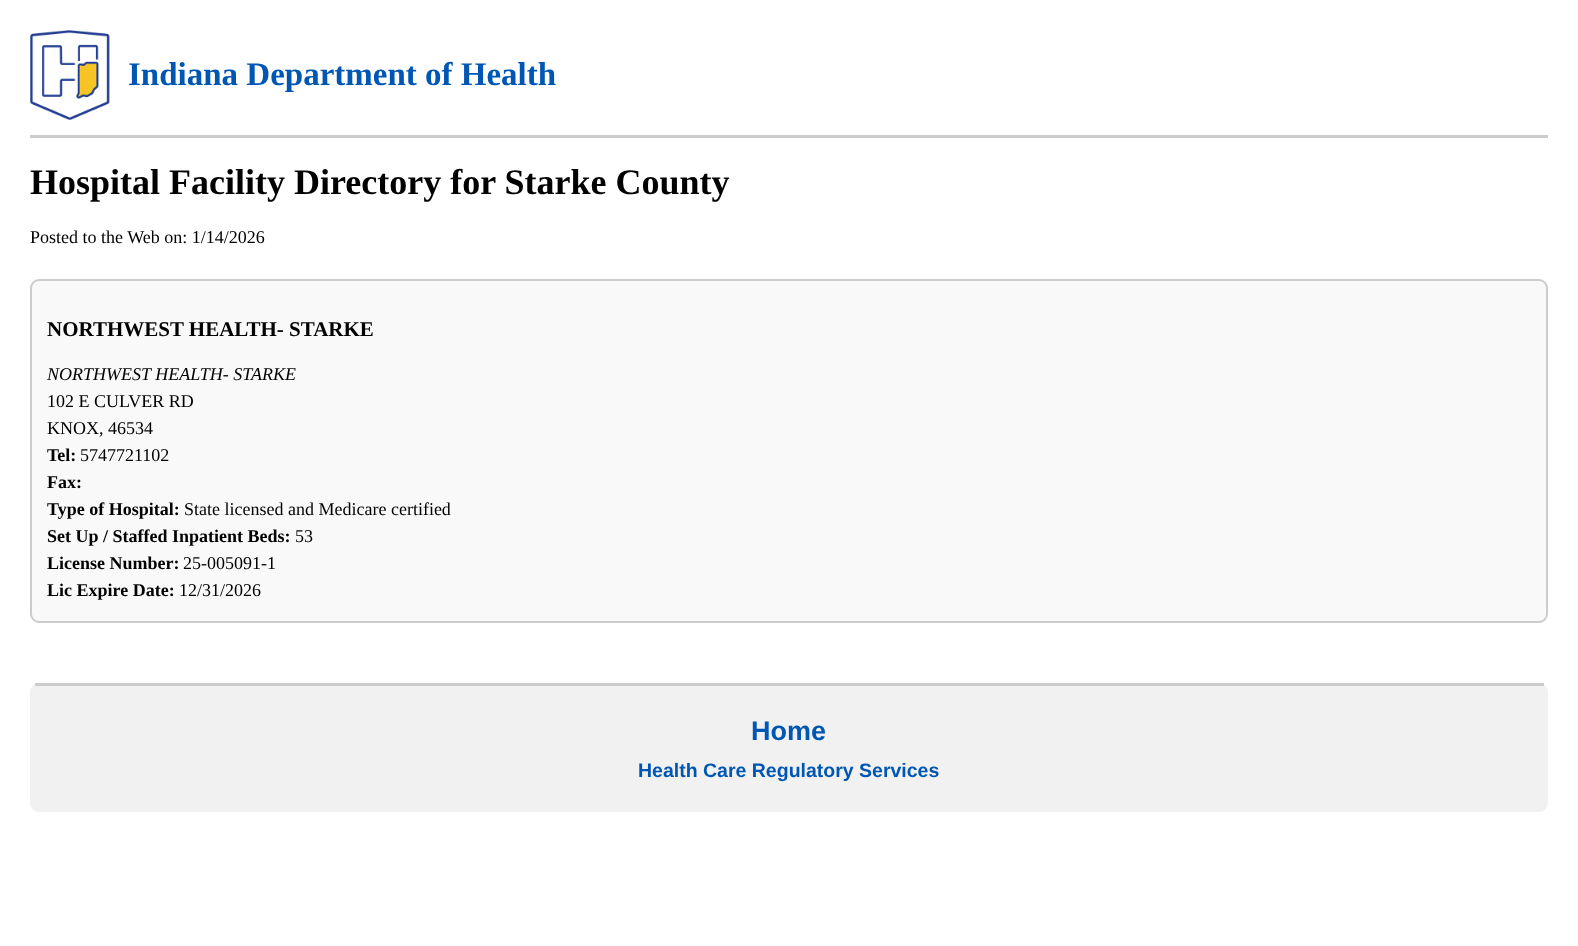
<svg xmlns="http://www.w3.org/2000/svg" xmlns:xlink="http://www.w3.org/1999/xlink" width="1578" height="946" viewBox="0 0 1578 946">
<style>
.cls-1{font:bold 33px Liberation Serif;fill:#0056b3}
.cls-2{font:bold 36px Liberation Serif;fill:#000000}
.cls-3{font:18px Liberation Serif;fill:#000000}
.cls-4{font:bold 21px Liberation Serif;fill:#000000}
.cls-5{font:italic 18px Liberation Serif;fill:#000000}
.cls-6{font:bold 18px Liberation Serif;fill:#000000}
.cls-7{font:bold 27px Liberation Sans;fill:#0056b3}
.cls-8{font:bold 19.5px Liberation Sans;fill:#0056b3}
</style>
<rect width="100%" height="100%" fill="#ffffff"/>
<image xlink:href="image0.png" x="30" y="30" width="80" height="90"/>
<rect fill="#cccccc" x="30" y="135" width="1518" height="3"/>
<rect fill="#f9f9f9" stroke="#cccccc" stroke-width="2" x="31" y="280" width="1516" height="342" rx="8"/>
<rect fill="#f1f1f1" x="30" y="683" width="1518" height="129" rx="9"/>
<rect fill="#cccccc" x="35" y="683" width="1509" height="3"/>
<text class="cls-1" x="128" y="85">Indiana Department of Health</text>
<text class="cls-2" x="30" y="194">Hospital Facility Directory for Starke County</text>
<text class="cls-3" x="30" y="243">Posted to the Web on: 1/14/2026</text>
<text class="cls-4" x="47" y="336">NORTHWEST HEALTH- STARKE</text>
<text class="cls-5" x="47" y="380">NORTHWEST HEALTH- STARKE</text>
<text class="cls-3"><tspan x="47" y="407">102 E CULVER RD</tspan><tspan x="47" y="434">KNOX, 46534</tspan></text>
<text class="cls-6" x="47" y="461">Tel:</text>
<text class="cls-3" x="80" y="461">5747721102</text>
<text class="cls-6"><tspan x="47" y="488">Fax:</tspan><tspan x="47" y="515">Type of Hospital:</tspan></text>
<text class="cls-3" x="184" y="515">State licensed and Medicare certified</text>
<text class="cls-6" x="47" y="542">Set Up / Staffed Inpatient Beds:</text>
<text class="cls-3" x="295" y="542">53</text>
<text class="cls-6" x="47" y="569">License Number:</text>
<text class="cls-3" x="183" y="569">25-005091-1</text>
<text class="cls-6" x="47" y="596">Lic Expire Date:</text>
<text class="cls-3" x="179" y="596">12/31/2026</text>
<text class="cls-7" x="751" y="740">Home</text>
<text class="cls-8" x="638" y="777">Health Care Regulatory Services</text>
</svg>
